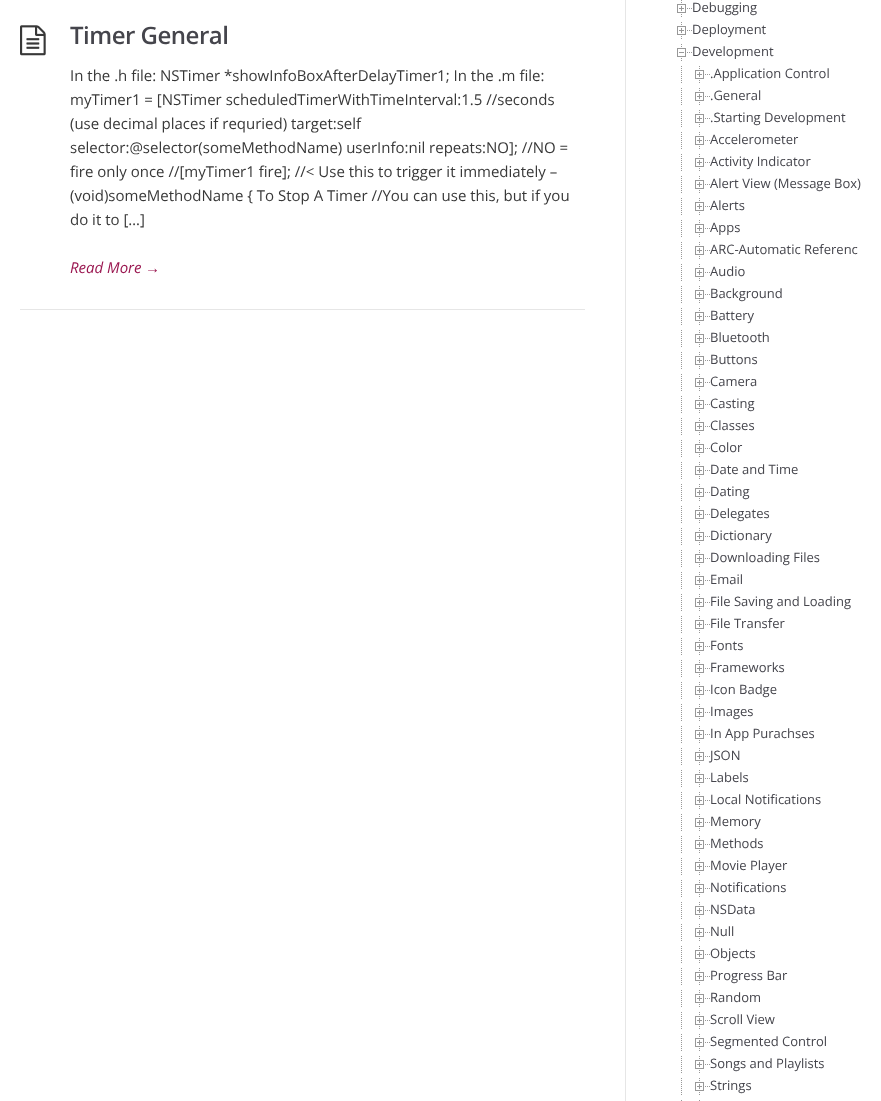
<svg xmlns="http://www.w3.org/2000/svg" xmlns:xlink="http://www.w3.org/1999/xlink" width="881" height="1101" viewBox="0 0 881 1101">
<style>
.cls-1{font:600 24px Open Sans;letter-spacing:-0.5px;fill:#45454c}
.cls-2{font:15px Open Sans;fill:#383838}
.cls-3{font:italic 15px Open Sans;fill:#9a1750}
.cls-4{font:italic 15px Liberation Sans;fill:#9a1750}
.cls-5{font:13px Open Sans;fill:#45454c}
</style>
<rect width="100%" height="100%" fill="#ffffff"/>
<rect fill="#e6e6e6" x="20" y="309" width="565" height="1"/>
<image xlink:href="image0.png" x="20" y="25" width="26" height="31"/>
<rect fill="#e6e6e6" x="625" y="0" width="1" height="1101"/>
<image xlink:href="image1.png" x="677" y="0" width="15" height="17"/>
<image xlink:href="image1.png" x="677" y="22" width="15" height="17"/>
<image xlink:href="image2.png" x="677" y="44" width="15" height="17"/>
<image xlink:href="image3.png" x="681" y="66" width="1" height="17"/>
<image xlink:href="image1.png" x="695" y="66" width="15" height="17"/>
<image xlink:href="image3.png" x="681" y="88" width="1" height="17"/>
<image xlink:href="image1.png" x="695" y="88" width="15" height="17"/>
<image xlink:href="image3.png" x="681" y="110" width="1" height="17"/>
<image xlink:href="image1.png" x="695" y="110" width="15" height="17"/>
<image xlink:href="image3.png" x="681" y="132" width="1" height="17"/>
<image xlink:href="image1.png" x="695" y="132" width="15" height="17"/>
<image xlink:href="image3.png" x="681" y="154" width="1" height="17"/>
<image xlink:href="image1.png" x="695" y="154" width="15" height="17"/>
<image xlink:href="image3.png" x="681" y="176" width="1" height="17"/>
<image xlink:href="image1.png" x="695" y="176" width="15" height="17"/>
<image xlink:href="image3.png" x="681" y="198" width="1" height="17"/>
<image xlink:href="image1.png" x="695" y="198" width="15" height="17"/>
<image xlink:href="image3.png" x="681" y="220" width="1" height="17"/>
<image xlink:href="image1.png" x="695" y="220" width="15" height="17"/>
<image xlink:href="image3.png" x="681" y="242" width="1" height="17"/>
<image xlink:href="image1.png" x="695" y="242" width="15" height="17"/>
<image xlink:href="image3.png" x="681" y="264" width="1" height="17"/>
<image xlink:href="image1.png" x="695" y="264" width="15" height="17"/>
<image xlink:href="image3.png" x="681" y="286" width="1" height="17"/>
<image xlink:href="image1.png" x="695" y="286" width="15" height="17"/>
<image xlink:href="image3.png" x="681" y="308" width="1" height="17"/>
<image xlink:href="image1.png" x="695" y="308" width="15" height="17"/>
<image xlink:href="image3.png" x="681" y="330" width="1" height="17"/>
<image xlink:href="image1.png" x="695" y="330" width="15" height="17"/>
<image xlink:href="image3.png" x="681" y="352" width="1" height="17"/>
<image xlink:href="image1.png" x="695" y="352" width="15" height="17"/>
<image xlink:href="image3.png" x="681" y="374" width="1" height="17"/>
<image xlink:href="image1.png" x="695" y="374" width="15" height="17"/>
<image xlink:href="image3.png" x="681" y="396" width="1" height="17"/>
<image xlink:href="image1.png" x="695" y="396" width="15" height="17"/>
<image xlink:href="image3.png" x="681" y="418" width="1" height="17"/>
<image xlink:href="image1.png" x="695" y="418" width="15" height="17"/>
<image xlink:href="image3.png" x="681" y="440" width="1" height="17"/>
<image xlink:href="image1.png" x="695" y="440" width="15" height="17"/>
<image xlink:href="image3.png" x="681" y="462" width="1" height="17"/>
<image xlink:href="image1.png" x="695" y="462" width="15" height="17"/>
<image xlink:href="image3.png" x="681" y="484" width="1" height="17"/>
<image xlink:href="image1.png" x="695" y="484" width="15" height="17"/>
<image xlink:href="image3.png" x="681" y="506" width="1" height="17"/>
<image xlink:href="image1.png" x="695" y="506" width="15" height="17"/>
<image xlink:href="image3.png" x="681" y="528" width="1" height="17"/>
<image xlink:href="image1.png" x="695" y="528" width="15" height="17"/>
<image xlink:href="image3.png" x="681" y="550" width="1" height="17"/>
<image xlink:href="image1.png" x="695" y="550" width="15" height="17"/>
<image xlink:href="image3.png" x="681" y="572" width="1" height="17"/>
<image xlink:href="image1.png" x="695" y="572" width="15" height="17"/>
<image xlink:href="image3.png" x="681" y="594" width="1" height="17"/>
<image xlink:href="image1.png" x="695" y="594" width="15" height="17"/>
<image xlink:href="image3.png" x="681" y="616" width="1" height="17"/>
<image xlink:href="image1.png" x="695" y="616" width="15" height="17"/>
<image xlink:href="image3.png" x="681" y="638" width="1" height="17"/>
<image xlink:href="image1.png" x="695" y="638" width="15" height="17"/>
<image xlink:href="image3.png" x="681" y="660" width="1" height="17"/>
<image xlink:href="image1.png" x="695" y="660" width="15" height="17"/>
<image xlink:href="image3.png" x="681" y="682" width="1" height="17"/>
<image xlink:href="image1.png" x="695" y="682" width="15" height="17"/>
<image xlink:href="image3.png" x="681" y="704" width="1" height="17"/>
<image xlink:href="image1.png" x="695" y="704" width="15" height="17"/>
<image xlink:href="image3.png" x="681" y="726" width="1" height="17"/>
<image xlink:href="image1.png" x="695" y="726" width="15" height="17"/>
<image xlink:href="image3.png" x="681" y="748" width="1" height="17"/>
<image xlink:href="image1.png" x="695" y="748" width="15" height="17"/>
<image xlink:href="image3.png" x="681" y="770" width="1" height="17"/>
<image xlink:href="image1.png" x="695" y="770" width="15" height="17"/>
<image xlink:href="image3.png" x="681" y="792" width="1" height="17"/>
<image xlink:href="image1.png" x="695" y="792" width="15" height="17"/>
<image xlink:href="image3.png" x="681" y="814" width="1" height="17"/>
<image xlink:href="image1.png" x="695" y="814" width="15" height="17"/>
<image xlink:href="image3.png" x="681" y="836" width="1" height="17"/>
<image xlink:href="image1.png" x="695" y="836" width="15" height="17"/>
<image xlink:href="image3.png" x="681" y="858" width="1" height="17"/>
<image xlink:href="image1.png" x="695" y="858" width="15" height="17"/>
<image xlink:href="image3.png" x="681" y="880" width="1" height="17"/>
<image xlink:href="image1.png" x="695" y="880" width="15" height="17"/>
<image xlink:href="image3.png" x="681" y="902" width="1" height="17"/>
<image xlink:href="image1.png" x="695" y="902" width="15" height="17"/>
<image xlink:href="image3.png" x="681" y="924" width="1" height="17"/>
<image xlink:href="image1.png" x="695" y="924" width="15" height="17"/>
<image xlink:href="image3.png" x="681" y="946" width="1" height="17"/>
<image xlink:href="image1.png" x="695" y="946" width="15" height="17"/>
<image xlink:href="image3.png" x="681" y="968" width="1" height="17"/>
<image xlink:href="image1.png" x="695" y="968" width="15" height="17"/>
<image xlink:href="image3.png" x="681" y="990" width="1" height="17"/>
<image xlink:href="image1.png" x="695" y="990" width="15" height="17"/>
<image xlink:href="image3.png" x="681" y="1012" width="1" height="17"/>
<image xlink:href="image1.png" x="695" y="1012" width="15" height="17"/>
<image xlink:href="image3.png" x="681" y="1034" width="1" height="17"/>
<image xlink:href="image1.png" x="695" y="1034" width="15" height="17"/>
<image xlink:href="image3.png" x="681" y="1056" width="1" height="17"/>
<image xlink:href="image1.png" x="695" y="1056" width="15" height="17"/>
<image xlink:href="image3.png" x="681" y="1078" width="1" height="17"/>
<image xlink:href="image1.png" x="695" y="1078" width="15" height="17"/>
<rect fill="#989898" x="681" y="1100" width="1" height="1"/>
<rect fill="#989898" x="699" y="1100" width="1" height="1"/>
<text class="cls-1" x="70" y="44">Timer General</text>
<text class="cls-2"><tspan x="70" y="81">In the .h file: NSTimer *showInfoBoxAfterDelayTimer1; In the .m file:</tspan><tspan x="70" y="105">myTimer1 = [NSTimer scheduledTimerWithTimeInterval:1.5 //seconds</tspan><tspan x="70" y="129">(use decimal places if requried) target:self</tspan><tspan x="70" y="153">selector:@selector(someMethodName) userInfo:nil repeats:NO]; //NO =</tspan><tspan x="70" y="177">fire only once //[myTimer1 fire]; //&lt; Use this to trigger it immediately –</tspan><tspan x="70" y="201">(void)someMethodName { To Stop A Timer //You can use this, but if you</tspan><tspan x="70" y="225">do it to […]</tspan></text>
<text class="cls-3" x="70" y="273">Read More</text>
<text class="cls-4" x="145" y="273">→</text>
<text class="cls-5"><tspan x="692" y="12">Debugging</tspan><tspan x="692" y="34">Deployment</tspan><tspan x="692" y="56">Development</tspan></text>
<text class="cls-5"><tspan x="710" y="78">.Application Control</tspan><tspan x="710" y="100">.General</tspan><tspan x="710" y="122">.Starting Development</tspan><tspan x="710" y="144">Accelerometer</tspan><tspan x="710" y="166">Activity Indicator</tspan><tspan x="710" y="188">Alert View (Message Box)</tspan><tspan x="710" y="210">Alerts</tspan><tspan x="710" y="232">Apps</tspan><tspan x="710" y="254">ARC-Automatic Referenc</tspan><tspan x="710" y="276">Audio</tspan><tspan x="710" y="298">Background</tspan><tspan x="710" y="320">Battery</tspan><tspan x="710" y="342">Bluetooth</tspan><tspan x="710" y="364">Buttons</tspan><tspan x="710" y="386">Camera</tspan><tspan x="710" y="408">Casting</tspan><tspan x="710" y="430">Classes</tspan><tspan x="710" y="452">Color</tspan><tspan x="710" y="474">Date and Time</tspan><tspan x="710" y="496">Dating</tspan><tspan x="710" y="518">Delegates</tspan><tspan x="710" y="540">Dictionary</tspan><tspan x="710" y="562">Downloading Files</tspan><tspan x="710" y="584">Email</tspan><tspan x="710" y="606">File Saving and Loading</tspan><tspan x="710" y="628">File Transfer</tspan><tspan x="710" y="650">Fonts</tspan><tspan x="710" y="672">Frameworks</tspan><tspan x="710" y="694">Icon Badge</tspan><tspan x="710" y="716">Images</tspan><tspan x="710" y="738">In App Purachses</tspan><tspan x="710" y="760">JSON</tspan><tspan x="710" y="782">Labels</tspan><tspan x="710" y="804">Local Notifications</tspan><tspan x="710" y="826">Memory</tspan><tspan x="710" y="848">Methods</tspan><tspan x="710" y="870">Movie Player</tspan><tspan x="710" y="892">Notifications</tspan><tspan x="710" y="914">NSData</tspan><tspan x="710" y="936">Null</tspan><tspan x="710" y="958">Objects</tspan><tspan x="710" y="980">Progress Bar</tspan><tspan x="710" y="1002">Random</tspan><tspan x="710" y="1024">Scroll View</tspan><tspan x="710" y="1046">Segmented Control</tspan><tspan x="710" y="1068">Songs and Playlists</tspan><tspan x="710" y="1090">Strings</tspan></text>
</svg>
